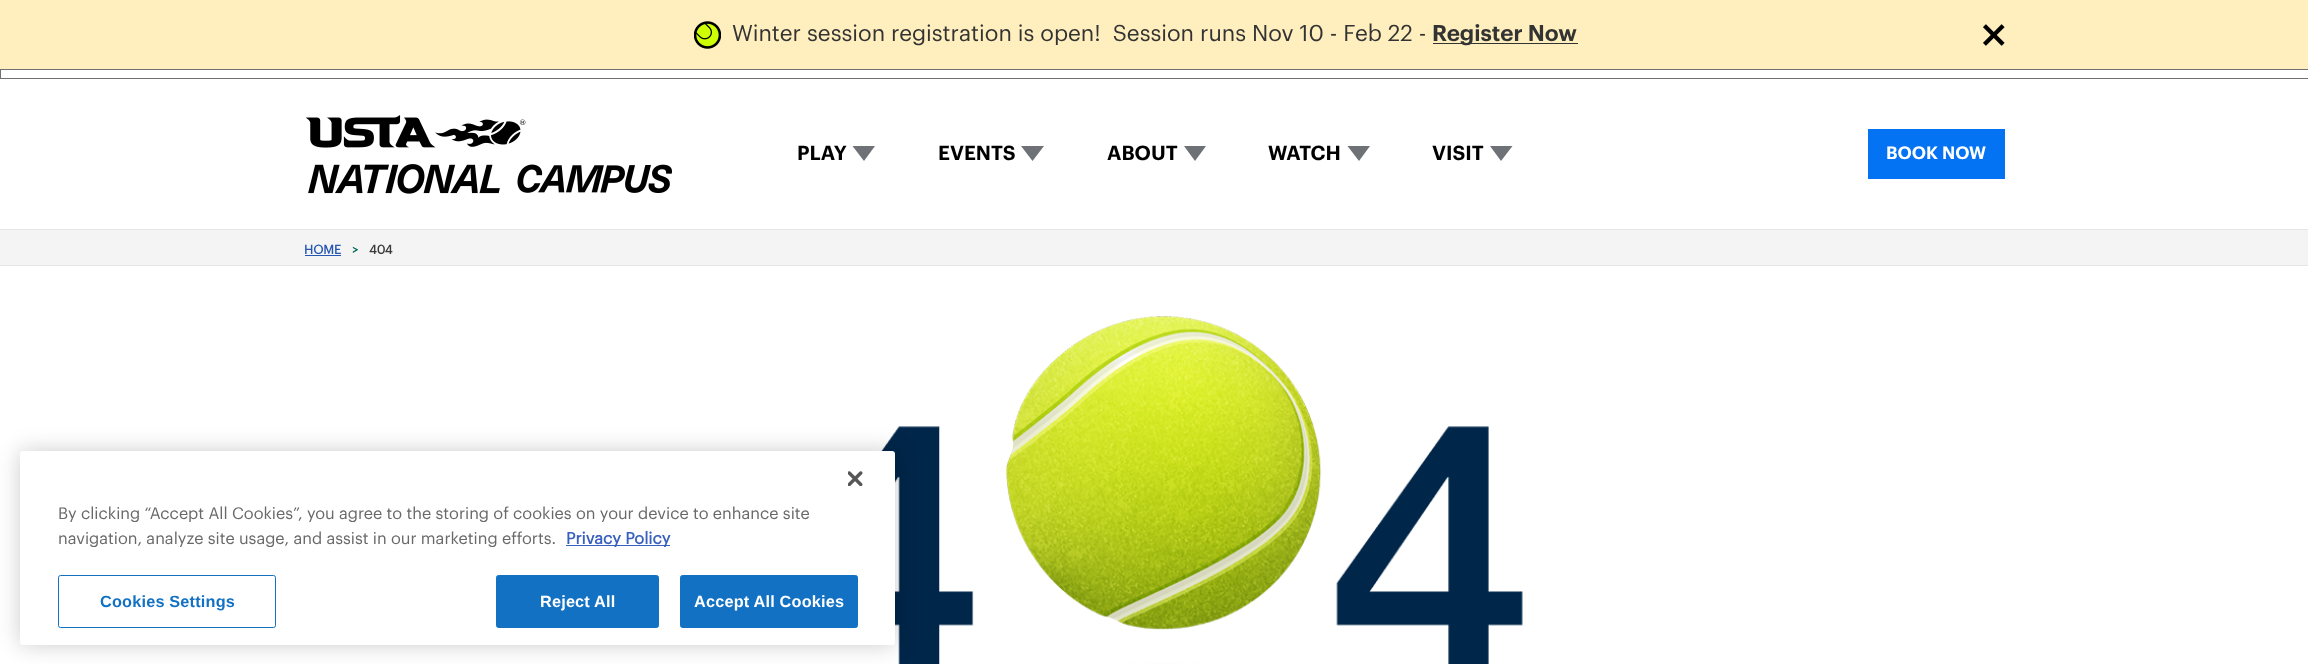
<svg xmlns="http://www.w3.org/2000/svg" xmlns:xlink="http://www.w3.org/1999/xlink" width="2308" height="664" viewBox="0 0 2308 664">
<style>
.cls-1{font:22.5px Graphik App;fill:#333333}
.cls-2{font:600 22.5px Graphik App;fill:#333333}
.cls-3{font:600 20px Graphik App;fill:#000000}
.cls-4{font:600 17.5px Graphik App;fill:#ffffff}
.cls-5{font:bold 12.5px Graphik App;fill:#2456b2}
.cls-6{font:bold 12.5px Graphik App;fill:#01675a}
.cls-7{font:bold 12.5px Graphik App;fill:#3a3a3a}
.cls-8{font:16.25px Graphik App;fill:#696969}
.cls-9{font:bold 16.25px Graphik App;fill:#3860be}
.cls-10{font:bold 16.25px Liberation Sans;letter-spacing:0.2px;fill:#1371c3}
.cls-11{font:bold 16.25px Liberation Sans;letter-spacing:0.2px;fill:#ffffff}
</style>
<rect width="100%" height="100%" fill="#ffffff"/>
<rect fill="#ffefbe" x="0" y="0" width="2308" height="69"/>
<image xlink:href="image0.png" x="694" y="21" width="27" height="28"/>
<rect fill="#333333" x="1433" y="43" width="145" height="1"/>
<image xlink:href="image1.png" x="1983" y="24" width="22" height="22"/>
<rect fill="none" stroke="#707070" x="0.5" y="69.5" width="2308" height="9"/>
<image xlink:href="image2.png" x="305" y="115" width="367" height="79"/>
<path fill="#6e7277" d="M852.5 146H875L864 161Z"/>
<path fill="#6e7277" d="M1021 146H1044L1032.5 161Z"/>
<path fill="#6e7277" d="M1184 146H1206L1195 161Z"/>
<path fill="#6e7277" d="M1347.5 146H1370L1359 161Z"/>
<path fill="#6e7277" d="M1490 146H1512.5L1501 161Z"/>
<rect fill="#0373f3" x="1868" y="129" width="137" height="50"/>
<rect fill="#f4f4f4" x="0" y="230" width="2308" height="35"/>
<rect fill="#e5e5e5" x="0" y="229" width="2308" height="1"/>
<rect fill="#e5e5e5" x="0" y="265" width="2308" height="1"/>
<rect fill="#2456b2" x="305" y="255" width="36" height="1"/>
<image xlink:href="image3.png" x="881" y="316" width="642" height="348"/>
<rect fill="#000000" fill-opacity="0.2" filter="blur(11px)" x="20" y="451" width="875" height="194" rx="3"/>
<rect fill="#ffffff" x="20" y="451" width="875" height="194" rx="3"/>
<image xlink:href="image4.png" x="848" y="471" width="15" height="15"/>
<rect fill="#3860be" x="566" y="545" width="104" height="1"/>
<rect fill="none" stroke="#1371c3" x="58.5" y="575.5" width="217" height="52" rx="2"/>
<rect fill="#1371c3" stroke="#1371c3" x="496.5" y="575.5" width="162" height="52" rx="2"/>
<rect fill="#1371c3" stroke="#1371c3" x="680.5" y="575.5" width="177" height="52" rx="2"/>
<text class="cls-1" xml:space="preserve" x="732" y="41">Winter session registration is open!  Session runs Nov 10 - Feb 22 -</text>
<text class="cls-2" x="1432" y="41">Register Now</text>
<text class="cls-3" x="797" y="160">PLAY</text>
<text class="cls-3" x="938" y="160">EVENTS</text>
<text class="cls-3" x="1107" y="160">ABOUT</text>
<text class="cls-3" x="1268" y="160">WATCH</text>
<text class="cls-3" x="1432" y="160">VISIT</text>
<text class="cls-4" x="1886" y="159">BOOK NOW</text>
<text class="cls-5" x="304" y="254">HOME</text>
<text class="cls-6" x="352" y="254">&gt;</text>
<text class="cls-7" x="369" y="254">404</text>
<text class="cls-8"><tspan x="58" y="519">By clicking “Accept All Cookies”, you agree to the storing of cookies on your device to enhance site</tspan><tspan x="58" y="544">navigation, analyze site usage, and assist in our marketing efforts.</tspan></text>
<text class="cls-9" x="566" y="544">Privacy Policy</text>
<text class="cls-10" x="100" y="607">Cookies Settings</text>
<text class="cls-11" x="540" y="607">Reject All</text>
<text class="cls-11" x="694" y="607">Accept All Cookies</text>
</svg>
